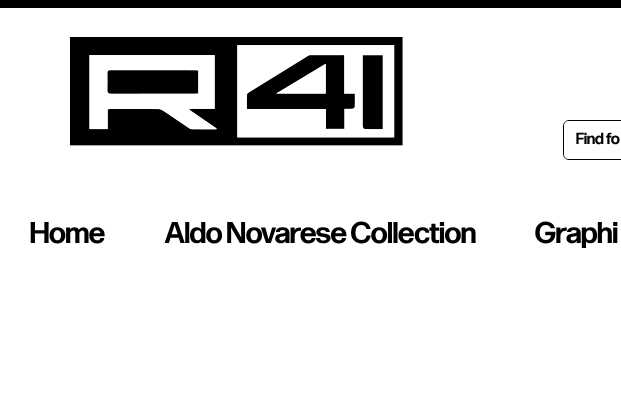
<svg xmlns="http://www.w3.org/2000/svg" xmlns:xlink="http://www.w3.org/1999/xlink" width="621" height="417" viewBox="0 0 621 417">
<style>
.cls-1{font:bold 16px 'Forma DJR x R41';fill:#000000}
.cls-2{font:bold 30px 'Forma DJR x R41';fill:#000000}
</style>
<rect width="100%" height="100%" fill="#ffffff"/>
<rect fill="#000000" x="0" y="0" width="621" height="8"/>
<image xlink:href="image0.png" x="69" y="37" width="334" height="109"/>
<rect fill="none" stroke="#000000" x="563.5" y="120.5" width="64" height="39" rx="5.5"/>
<rect fill="#ffffff" x="564" y="121" width="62" height="38" rx="5"/>
<text class="cls-1" x="576" y="144">Find fo</text>
<text class="cls-2" x="30" y="243">Home</text>
<text class="cls-2" x="165" y="243">Aldo Novarese Collection</text>
<text class="cls-2" x="535" y="243">Graphi</text>
</svg>
